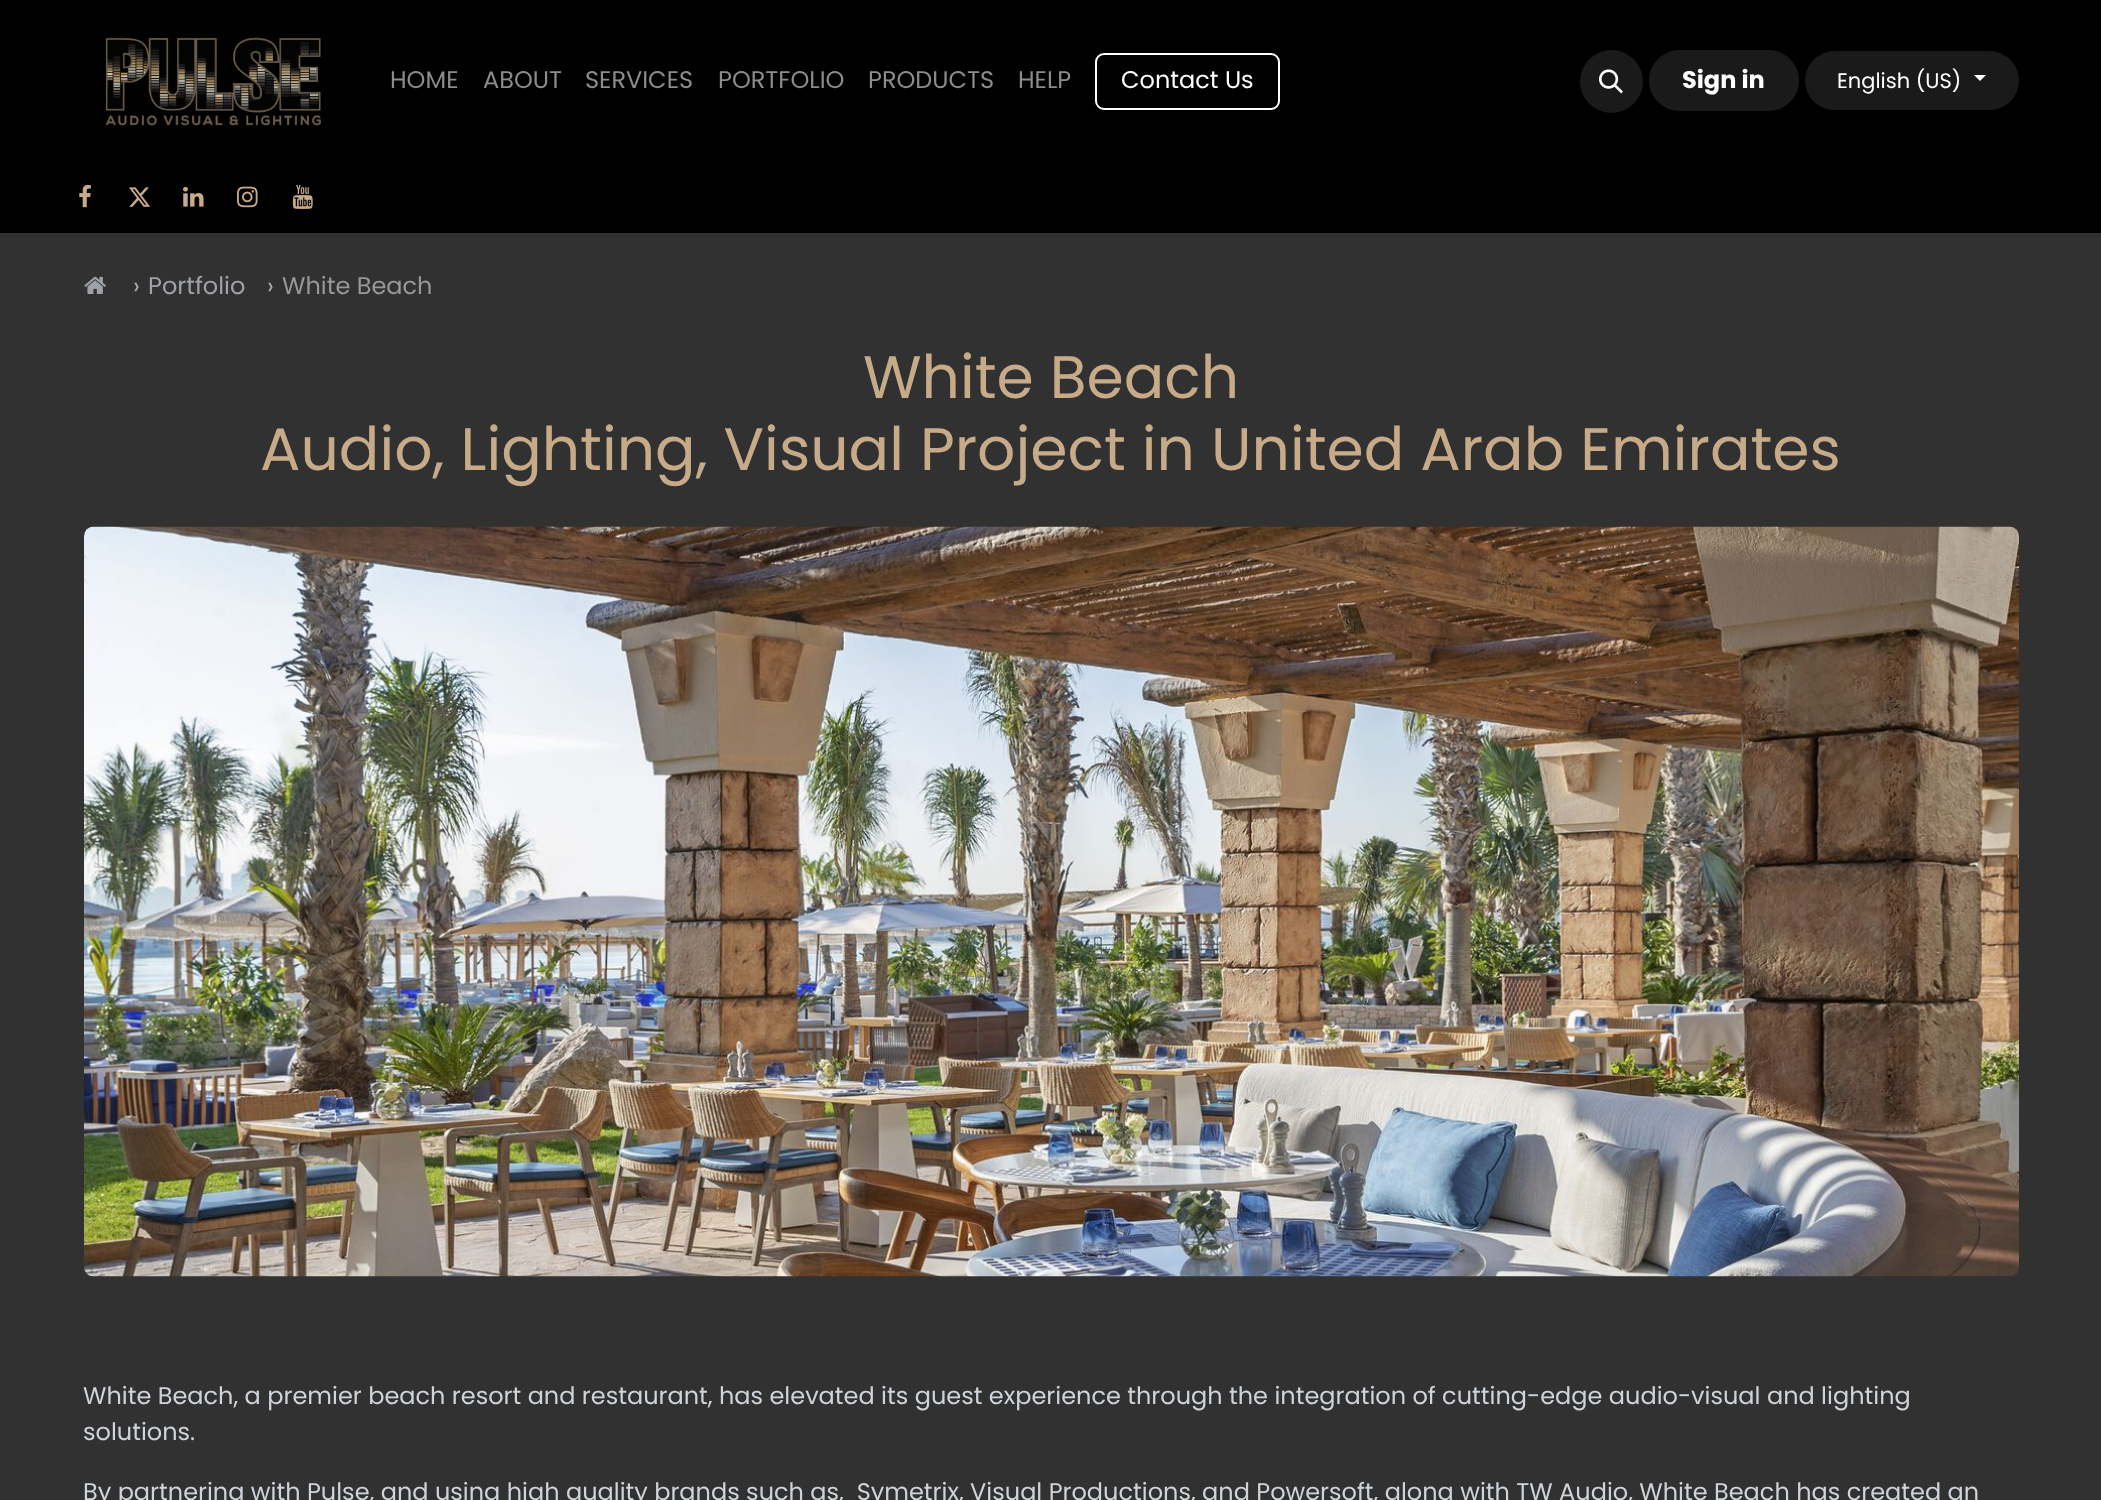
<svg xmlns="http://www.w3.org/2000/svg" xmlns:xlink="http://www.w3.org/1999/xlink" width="2101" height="1500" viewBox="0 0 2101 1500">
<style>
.cls-1{font:24px Poppins;fill:#8c8c8c}
.cls-2{font:24px Poppins;fill:#ffffff}
.cls-3{font:bold 24px Poppins;fill:#ffffff}
.cls-4{font:21px Poppins;fill:#ffffff}
.cls-5{font:24px Poppins;fill:#aaaaaa}
.cls-6{font:24px Poppins;fill:#9fa3a7}
.cls-7{font:24px Poppins;fill:#989898}
.cls-8{font:60px Poppins;fill:#c7ab89}
.cls-9{font:24px Poppins;fill:#ced4da}
</style>
<rect width="100%" height="100%" fill="#313131"/>
<rect fill="#000000" x="0" y="0" width="2101" height="233"/>
<image xlink:href="image0.png" x="105" y="37" width="216" height="89"/>
<rect fill="none" stroke="#ffffff" stroke-width="2" x="1096" y="54" width="183" height="55" rx="8"/>
<circle fill="#1a1a1a" cx="1611.5" cy="81.5" r="31.5"/>
<image xlink:href="image1.png" x="1599" y="69" width="24" height="25"/>
<rect fill="#1a1a1a" x="1649" y="50" width="150" height="61" rx="30.5"/>
<rect fill="#1a1a1a" x="1805" y="51" width="214" height="59" rx="29.5"/>
<path fill="#ffffff" d="M1974 75H1986L1980 81Z"/>
<image xlink:href="image2.png" x="79" y="184" width="12" height="24"/>
<image xlink:href="image3.png" x="128" y="187" width="23" height="20"/>
<image xlink:href="image4.png" x="183" y="186" width="21" height="21"/>
<image xlink:href="image5.png" x="237" y="186" width="21" height="22"/>
<image xlink:href="image6.png" x="292" y="184" width="21" height="25"/>
<image xlink:href="image7.png" x="84" y="276" width="22" height="18"/>
<image xlink:href="image8.png" x="84" y="526" width="1935" height="751"/>
<text class="cls-1" x="390" y="88">HOME</text>
<text class="cls-1" x="483" y="88">ABOUT</text>
<text class="cls-1" x="585" y="88">SERVICES</text>
<text class="cls-1" x="718" y="88">PORTFOLIO</text>
<text class="cls-1" x="868" y="88">PRODUCTS</text>
<text class="cls-1" x="1018" y="88">HELP</text>
<text class="cls-2" x="1121" y="88">Contact Us</text>
<text class="cls-3" x="1682" y="88">Sign in</text>
<text class="cls-4" x="1837" y="88">English (US)</text>
<text class="cls-5" x="133" y="294">›</text>
<text class="cls-6" x="148" y="294">Portfolio</text>
<text class="cls-5" x="267" y="294">›</text>
<text class="cls-7" x="282" y="294">White Beach</text>
<text class="cls-8" x="863" y="398">White Beach</text>
<text class="cls-8" x="260" y="470">Audio, Lighting, Visual Project in United Arab Emirates</text>
<text class="cls-9"><tspan x="83" y="1404">White Beach, a premier beach resort and restaurant, has elevated its guest experience through the integration of cutting-edge audio-visual and lighting</tspan><tspan x="83" y="1440">solutions.</tspan></text>
<text class="cls-9" xml:space="preserve" x="83" y="1500">By partnering with Pulse, and using high quality brands such as,  Symetrix, Visual Productions, and Powersoft, along with TW Audio, White Beach has created an</text>
</svg>
